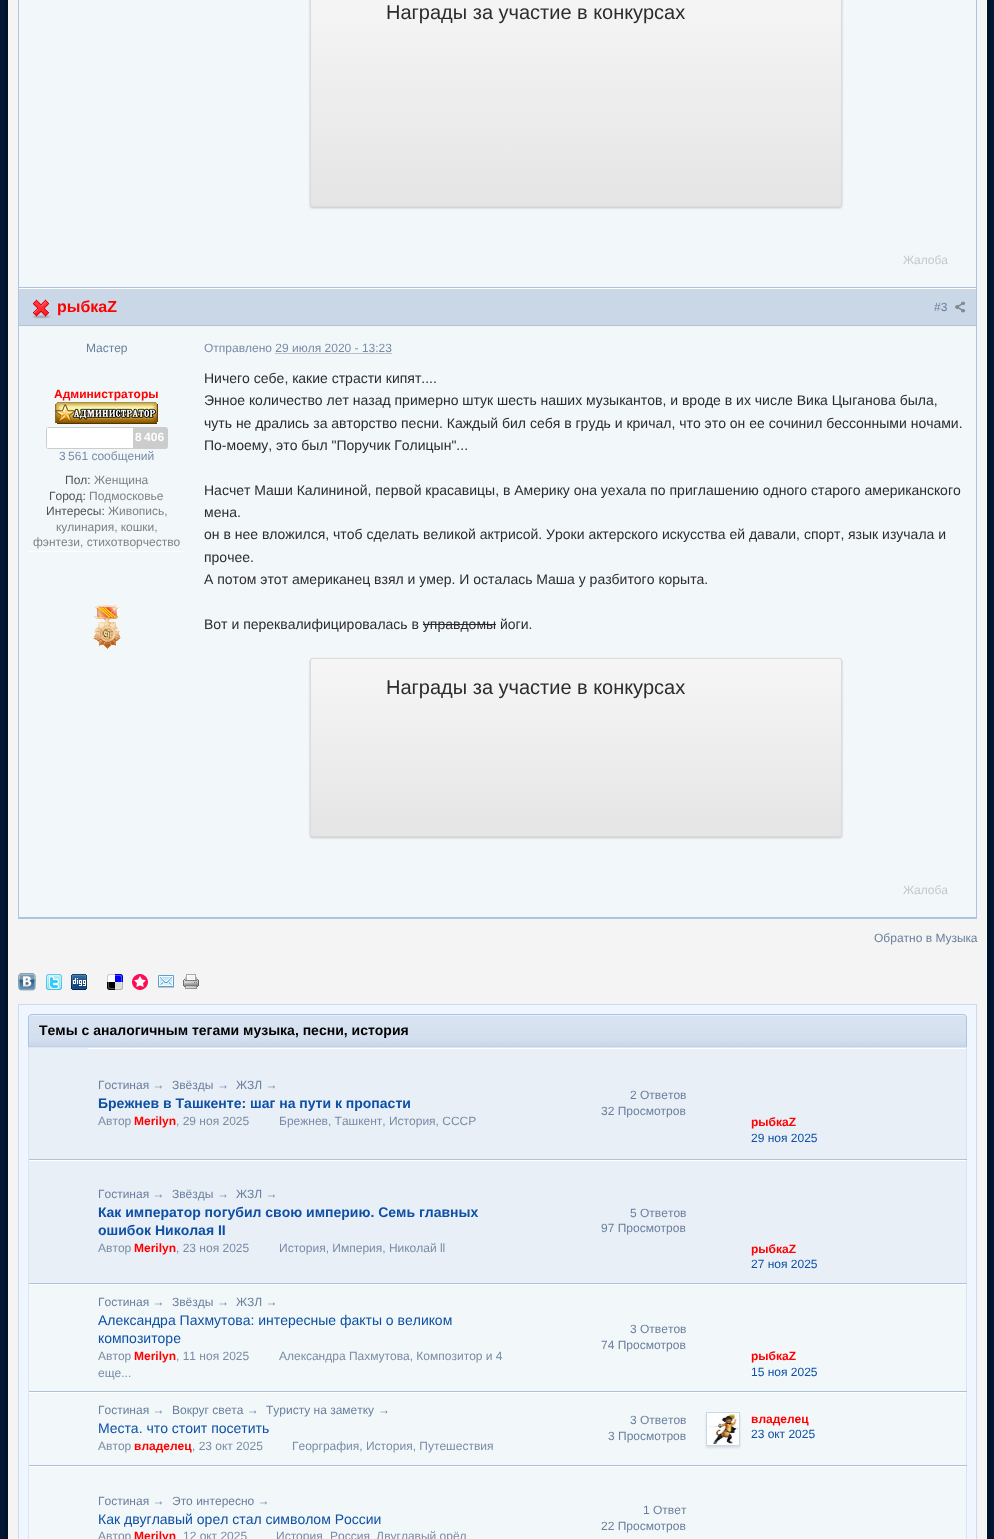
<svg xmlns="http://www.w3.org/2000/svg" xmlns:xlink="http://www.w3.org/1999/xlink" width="994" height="1539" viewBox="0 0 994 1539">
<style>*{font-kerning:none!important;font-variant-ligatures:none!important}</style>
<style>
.cls-1{font:20px Liberation Sans;fill:#2c2c2c}
.cls-2{font:12px Liberation Sans;fill:#c5c9cb}
.cls-3{font:bold 16px Liberation Sans;fill:#ff0000}
.cls-4{font:12px Liberation Sans;fill:#697f9c}
.cls-5{font:bold 12px Liberation Sans;fill:#ff0000}
.cls-6{font:bold 12px Liberation Sans;fill:#ffffff}
.cls-7{font:12px Liberation Sans;fill:#788ca5}
.cls-8{font:12px Liberation Sans;fill:#505050}
.cls-9{font:12px Liberation Sans;fill:#818181}
.cls-10{font:14px Liberation Sans;fill:#2c2c2c}
.cls-11{font:bold 14px Liberation Sans;fill:#000000}
.cls-12{font:bold 14px Liberation Sans;fill:#0d50a5}
.cls-13{font:12px Liberation Sans;fill:#0d50a5}
.cls-14{font:14px Liberation Sans;fill:#0d50a5}
</style>
<defs>
<clipPath id="clip1"><rect x="310" y="-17" width="532" height="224" rx="3"/></clipPath>
<linearGradient id="g1" gradientUnits="userSpaceOnUse" x1="311" y1="-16" x2="311" y2="206"><stop offset="0" stop-color="#f6f6f6"/><stop offset="1" stop-color="#e5e5e5"/></linearGradient>
<clipPath id="clip2"><rect x="310" y="658" width="532" height="179" rx="3"/></clipPath>
<linearGradient id="g2" gradientUnits="userSpaceOnUse" x1="311" y1="659" x2="311" y2="836"><stop offset="0" stop-color="#f6f6f6"/><stop offset="1" stop-color="#e5e5e5"/></linearGradient>
</defs>
<rect width="100%" height="100%" fill="#021733"/>
<image xlink:href="image0.png" x="4" y="0" width="4" height="1539"/>
<image xlink:href="image1.png" x="986" y="0" width="5" height="1539"/>
<rect fill="#f4f4f4" x="8" y="0" width="978" height="1539"/>
<rect fill="none" stroke="#aac5e8" x="18.5" y="-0.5" width="958" height="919"/>
<rect fill="#f2f7fa" x="19" y="0" width="957" height="287"/>
<rect fill="#b0c1d8" x="19" y="287" width="957" height="1"/>
<rect fill="#000000" fill-opacity="0.2" filter="blur(1px)" x="310" y="-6" width="532" height="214" rx="3"/>
<g clip-path="url(#clip1)">
<rect fill="url(#g1)" x="310" y="0" width="532" height="206"/>
</g>
<rect fill="none" stroke="#dbdbdb" x="310.5" y="-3.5" width="531" height="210" rx="2.5"/>
<rect fill="#f2f7fa" x="19" y="326" width="957" height="591"/>
<rect fill="#b0c1d8" x="19" y="917" width="957" height="1"/>
<rect fill="#cad7e7" x="19" y="289" width="957" height="36"/>
<rect fill="#ffffff" x="19" y="288" width="957" height="1"/>
<rect fill="#b0c1d8" x="19" y="325" width="957" height="1"/>
<image xlink:href="image2.png" x="32" y="299" width="19" height="20"/>
<image xlink:href="image3.png" x="955" y="301" width="10" height="12"/>
<image xlink:href="image4.png" x="55" y="402" width="103" height="22"/>
<rect fill="#cccccc" x="46" y="427" width="122" height="22" rx="3"/>
<rect fill="#ffffff" x="47" y="428" width="86" height="20"/>
<rect fill="#ffffff" x="29" y="551" width="155" height="1"/>
<image xlink:href="image5.png" x="93" y="605" width="28" height="44"/>
<path fill="none" stroke="#788ca5" stroke-dasharray="1 1" d="M275.5 353.5H392"/>
<rect fill="#000000" fill-opacity="0.2" filter="blur(1px)" x="310" y="659" width="532" height="179" rx="3"/>
<g clip-path="url(#clip2)">
<rect fill="url(#g2)" x="310" y="659" width="532" height="177"/>
</g>
<rect fill="none" stroke="#dbdbdb" x="310.5" y="658.5" width="531" height="178" rx="2.5"/>
<image xlink:href="image6.png" x="18" y="973" width="18" height="18"/>
<image xlink:href="image7.png" x="46" y="974" width="16" height="16"/>
<image xlink:href="image8.png" x="71" y="974" width="16" height="16"/>
<image xlink:href="image9.png" x="107" y="974" width="16" height="16"/>
<image xlink:href="image10.png" x="132" y="974" width="16" height="16"/>
<image xlink:href="image11.png" x="158" y="975" width="16" height="13"/>
<image xlink:href="image12.png" x="183" y="974" width="16" height="15"/>
<rect fill="#eff6ff" stroke="#cedbec" x="18.5" y="1004.5" width="958" height="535"/>
<image xlink:href="image13.png" x="28" y="1015" width="939" height="32"/>
<path fill="#e8eef7" d="M32 1016H963C965 1016 966 1017 966 1019C966 1017 965 1015 963 1015H32C30 1015 29 1017 29 1019C29 1017 30 1016 32 1016Z"/>
<path fill="#aac5e8" fill-rule="evenodd" d="M32 1014H963C965 1014 967 1016 967 1018V1047H28V1018C28 1016 30 1014 32 1014ZM32 1015H963C965 1015 966 1016 966 1018V1047H29V1018C29 1016 30 1015 32 1015Z"/>
<rect fill="none" stroke="#dbe4ef" x="28.5" y="1047.5" width="938" height="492"/>
<rect fill="#f2f7fa" x="29" y="1285" width="937" height="254"/>
<rect fill="#e9eff7" x="88" y="1049" width="878" height="110"/>
<rect fill="#e9eff7" x="29" y="1048" width="59" height="111"/>
<rect fill="#ffffff" x="88" y="1048" width="878" height="1"/>
<rect fill="#b0c2d8" x="29" y="1159" width="938" height="1"/>
<rect fill="#e9eff7" x="88" y="1161" width="878" height="122"/>
<image xlink:href="image14.png" x="29" y="1160" width="59" height="123"/>
<rect fill="#ffffff" x="88" y="1160" width="878" height="1"/>
<rect fill="#b0c2d8" x="29" y="1283" width="938" height="1"/>
<rect fill="#ffffff" x="29" y="1284" width="937" height="1"/>
<rect fill="#b0c2d8" x="29" y="1391" width="938" height="1"/>
<rect fill="#ffffff" x="29" y="1392" width="937" height="1"/>
<rect fill="#b0c2d8" x="29" y="1465" width="938" height="1"/>
<rect fill="#000000" fill-opacity="0.1" filter="blur(1px)" x="706" y="1414" width="34" height="34"/>
<rect fill="#ffffff" stroke="#cad7e7" x="706.5" y="1412.5" width="33" height="33"/>
<image xlink:href="image15.png" x="708" y="1414" width="30" height="30"/>
<rect fill="#ffffff" x="29" y="1466" width="937" height="1"/>
<text class="cls-1" x="386" y="19">Награды за участие в конкурсах</text>
<text class="cls-2" x="903" y="264">Жалоба</text>
<text class="cls-3" x="57" y="312">рыбкаZ</text>
<text class="cls-4" x="934" y="311">#3</text>
<text class="cls-4" x="86" y="352">Мастер</text>
<text class="cls-5" x="54" y="398">Администраторы</text>
<text class="cls-6" x="135" y="441">8 406</text>
<text class="cls-7" x="59" y="460">3 561 сообщений</text>
<text class="cls-8" x="65" y="484">Пол:</text>
<text class="cls-9" x="94" y="484">Женщина</text>
<text class="cls-8" x="49" y="500">Город:</text>
<text class="cls-9" x="89" y="500">Подмосковье</text>
<text class="cls-8" x="46" y="515">Интересы:</text>
<text class="cls-9" x="108" y="515">Живопись,</text>
<text class="cls-9" x="56" y="531">кулинария, кошки,</text>
<text class="cls-9" x="33" y="546">фэнтези, стихотворчество</text>
<text class="cls-7" x="204" y="352">Отправлено 29 июля 2020 - 13:23</text>
<text class="cls-10"><tspan x="204" y="383">Ничего себе, какие страсти кипят....</tspan><tspan x="204" y="405">Энное количество лет назад примерно штук шесть наших музыкантов, и вроде в их числе Вика Цыганова была,</tspan><tspan x="204" y="428">чуть не дрались за авторство песни. Каждый бил себя в грудь и кричал, что это он ее сочинил бессонными ночами.</tspan><tspan x="204" y="450">По-моему, это был "Поручик Голицын"...</tspan></text>
<text class="cls-10"><tspan x="204" y="495">Насчет Маши Калининой, первой красавицы, в Америку она уехала по приглашению одного старого американского</tspan><tspan x="204" y="517">мена.</tspan><tspan x="204" y="539">он в нее вложился, чтоб сделать великой актрисой. Уроки актерского искусства ей давали, спорт,</tspan></text>
<text class="cls-10" x="848" y="539">язык изучала и</text>
<text class="cls-10"><tspan x="204" y="562">прочее.</tspan><tspan x="204" y="584">А потом этот американец взял и умер. И осталась Маша у разбитого корыта.</tspan></text>
<text class="cls-10" x="204" y="629">Вот и переквалифицировалась в управдомы йоги.</text>
<rect fill="#282828" x="423" y="624" width="73" height="1"/>
<text class="cls-1" x="386" y="694">Награды за участие в конкурсах</text>
<text class="cls-2" x="903" y="894">Жалоба</text>
<text class="cls-4" x="874" y="942">Обратно в Музыка</text>
<text class="cls-11" x="39" y="1035">Темы с аналогичным тегами музыка, песни, история</text>
<text class="cls-4" x="98" y="1089">Гостиная →</text>
<text class="cls-4" x="172" y="1089">Звёзды</text>
<text class="cls-4" x="217" y="1089">→</text>
<text class="cls-4" x="236" y="1089">ЖЗЛ →</text>
<text class="cls-12" x="98" y="1108">Брежнев в Ташкенте: шаг на пути к пропасти</text>
<text class="cls-7" x="98" y="1125">Автор</text>
<text class="cls-5" x="134" y="1125">Merilyn</text>
<text class="cls-7" x="176" y="1125">, 29 ноя 2025</text>
<text class="cls-7" x="279" y="1125">Брежнев, Ташкент, История, СССР</text>
<text class="cls-4" x="630" y="1099">2 Ответов</text>
<text class="cls-4" x="601" y="1115">32 Просмотров</text>
<text class="cls-5" x="751" y="1126">рыбкаZ</text>
<text class="cls-13" x="751" y="1142">29 ноя 2025</text>
<text class="cls-4" x="98" y="1198">Гостиная →</text>
<text class="cls-4" x="172" y="1198">Звёзды</text>
<text class="cls-4" x="217" y="1198">→</text>
<text class="cls-4" x="236" y="1198">ЖЗЛ →</text>
<text class="cls-12"><tspan x="98" y="1217">Как император погубил свою империю. Семь главных</tspan><tspan x="98" y="1235">ошибок Николая II</tspan></text>
<text class="cls-7" x="98" y="1252">Автор</text>
<text class="cls-5" x="134" y="1252">Merilyn</text>
<text class="cls-7" x="176" y="1252">, 23 ноя 2025</text>
<text class="cls-7" x="279" y="1252">История, Империя, Николай ll</text>
<text class="cls-4" x="630" y="1217">5 Ответов</text>
<text class="cls-4" x="601" y="1232">97 Просмотров</text>
<text class="cls-5" x="751" y="1253">рыбкаZ</text>
<text class="cls-13" x="751" y="1268">27 ноя 2025</text>
<text class="cls-4" x="98" y="1306">Гостиная →</text>
<text class="cls-4" x="172" y="1306">Звёзды</text>
<text class="cls-4" x="217" y="1306">→</text>
<text class="cls-4" x="236" y="1306">ЖЗЛ →</text>
<text class="cls-14"><tspan x="98" y="1325">Александра Пахмутова: интересные факты о великом</tspan><tspan x="98" y="1343">композиторе</tspan></text>
<text class="cls-7" x="98" y="1360">Автор</text>
<text class="cls-5" x="134" y="1360">Merilyn</text>
<text class="cls-7" x="176" y="1360">, 11 ноя 2025</text>
<text class="cls-7" x="279" y="1360">Александра Пахмутова, Композитор и 4</text>
<text class="cls-7" x="98" y="1377">еще...</text>
<text class="cls-4" x="630" y="1333">3 Ответов</text>
<text class="cls-4" x="601" y="1349">74 Просмотров</text>
<text class="cls-5" x="751" y="1360">рыбкаZ</text>
<text class="cls-13" x="751" y="1376">15 ноя 2025</text>
<text class="cls-4" x="98" y="1414">Гостиная →</text>
<text class="cls-4" x="172" y="1414">Вокруг света →</text>
<text class="cls-4" x="266" y="1414">Туристу на заметку</text>
<text class="cls-4" x="378" y="1414">→</text>
<text class="cls-14" x="98" y="1433">Места. что стоит посетить</text>
<text class="cls-7" x="98" y="1450">Автор</text>
<text class="cls-5" x="134" y="1450">владелец</text>
<text class="cls-7" x="192" y="1450">, 23 окт 2025</text>
<text class="cls-7" x="292" y="1450">Георграфия, История, Путешествия</text>
<text class="cls-4" x="630" y="1424">3 Ответов</text>
<text class="cls-4" x="608" y="1440">3 Просмотров</text>
<text class="cls-5" x="751" y="1423">владелец</text>
<text class="cls-13" x="751" y="1438">23 окт 2025</text>
<text class="cls-4" x="98" y="1505">Гостиная →</text>
<text class="cls-4" x="172" y="1505">Это интересно →</text>
<text class="cls-14" x="98" y="1524">Как двуглавый орел стал символом России</text>
<text class="cls-7" x="98" y="1540">Автор</text>
<text class="cls-5" x="134" y="1540">Merilyn</text>
<text class="cls-7" x="183" y="1540">12 окт 2025</text>
<text class="cls-7" x="276" y="1540">История</text>
<text class="cls-7" x="330" y="1540">Россия</text>
<text class="cls-7" x="376" y="1540">Двуглавый орёл</text>
<text class="cls-4" x="643" y="1514">1 Ответ</text>
<text class="cls-4" x="601" y="1530">22 Просмотров</text>
</svg>
